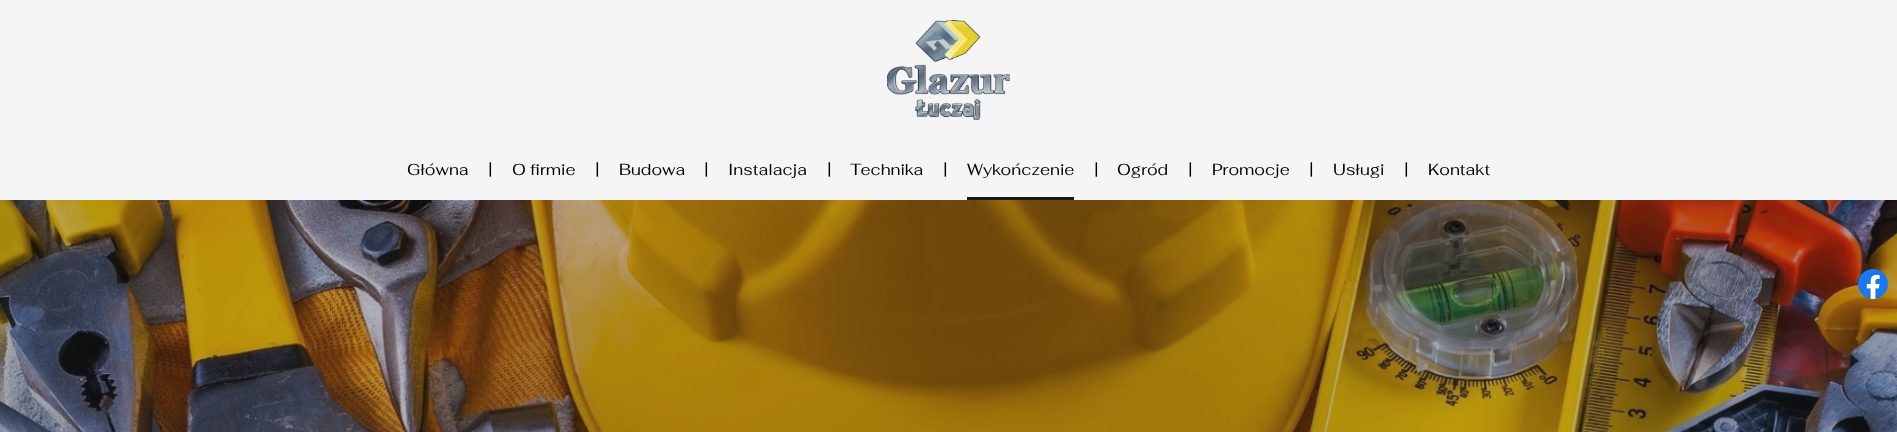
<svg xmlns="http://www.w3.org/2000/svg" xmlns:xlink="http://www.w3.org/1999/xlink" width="1897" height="432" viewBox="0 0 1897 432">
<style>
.cls-1{font:16px Fahkwang;fill:#000000}
.cls-2{font:16px Poppins;fill:#000000}
</style>
<rect width="100%" height="100%" fill="#f5f5f5"/>
<image xlink:href="image0.png" x="887" y="20" width="123" height="100"/>
<rect fill="#1a1919" x="967" y="197" width="107" height="3"/>
<image xlink:href="image1.png" x="0" y="200" width="1897" height="232"/>
<image xlink:href="image2.png" x="1858" y="269" width="30" height="30"/>
<text class="cls-1" x="407" y="175">Główna</text>
<text class="cls-2" x="488" y="175">|</text>
<text class="cls-1" x="512" y="175">O firmie</text>
<text class="cls-2" x="595" y="175">|</text>
<text class="cls-1" x="619" y="175">Budowa</text>
<text class="cls-2" x="704" y="175">|</text>
<text class="cls-1" x="728" y="175">Instalacja</text>
<text class="cls-2" x="827" y="175">|</text>
<text class="cls-1" x="850" y="175">Technika</text>
<text class="cls-2" x="943" y="175">|</text>
<text class="cls-1" x="967" y="175">Wykończenie</text>
<text class="cls-2" x="1094" y="175">|</text>
<text class="cls-1" x="1117" y="175">Ogród</text>
<text class="cls-2" x="1188" y="175">|</text>
<text class="cls-1" x="1212" y="175">Promocje</text>
<text class="cls-2" x="1309" y="175">|</text>
<text class="cls-1" x="1333" y="175">Usługi</text>
<text class="cls-2" x="1404" y="175">|</text>
<text class="cls-1" x="1428" y="175">Kontakt</text>
</svg>
